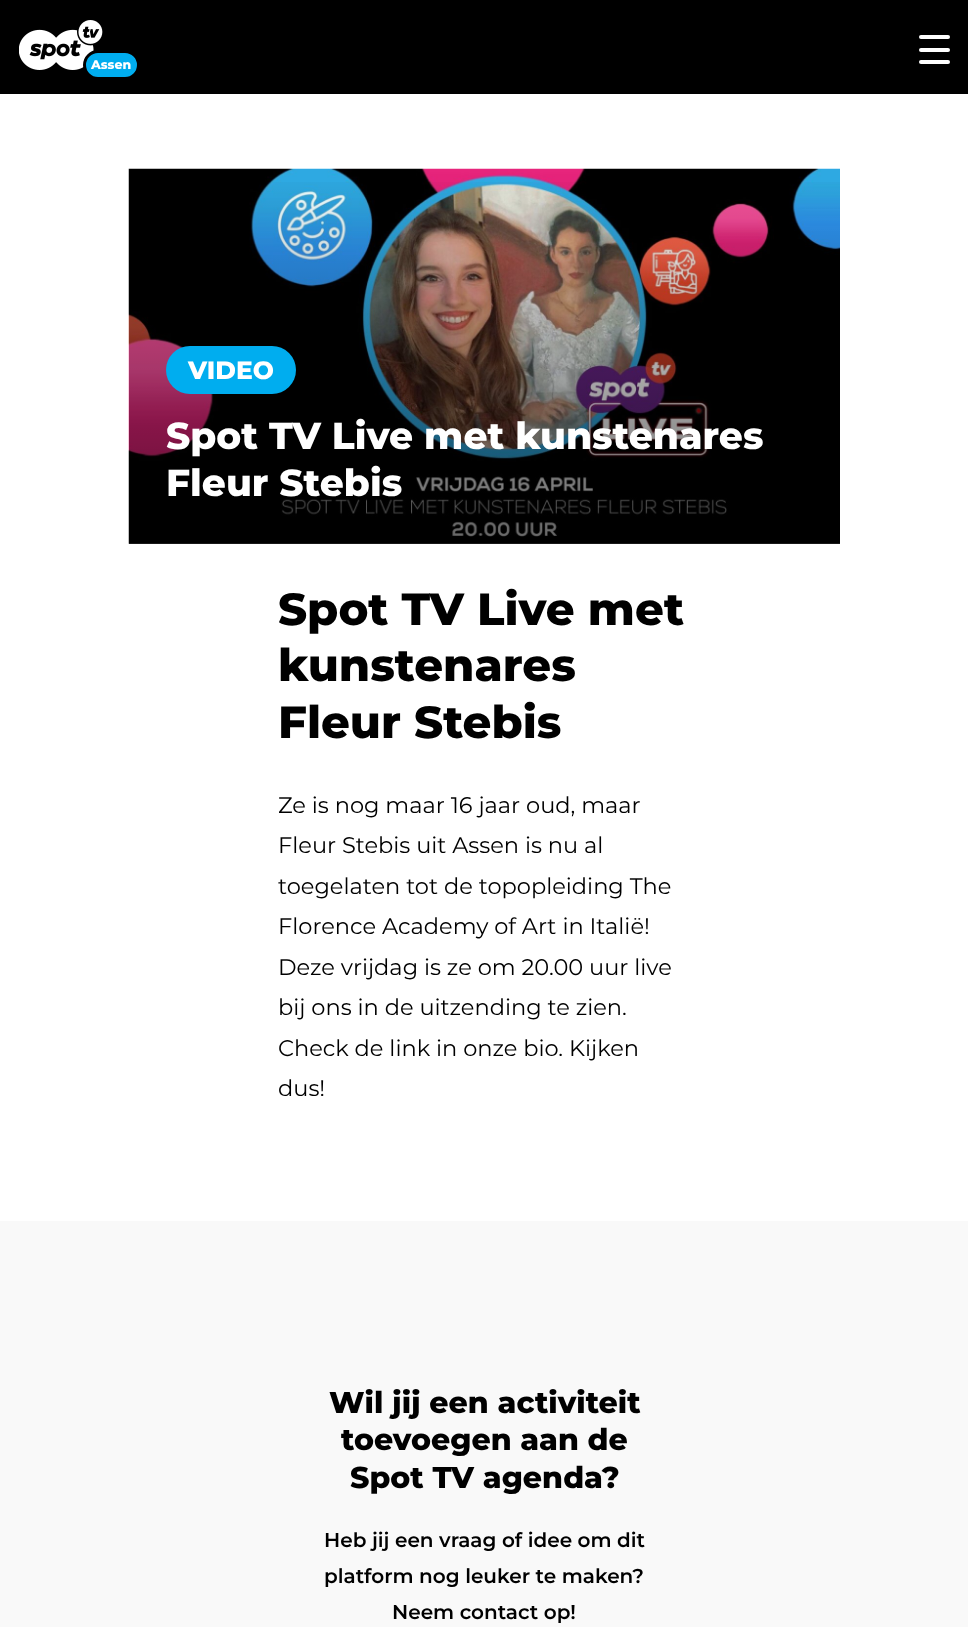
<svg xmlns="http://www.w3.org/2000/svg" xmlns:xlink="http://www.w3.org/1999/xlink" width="968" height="1627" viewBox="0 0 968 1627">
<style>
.cls-1{font:800 12.5px Montserrat;fill:#ffffff}
.cls-2{font:800 25px Montserrat;fill:#ffffff}
.cls-3{font:800 37.5px Montserrat;fill:#ffffff}
.cls-4{font:800 45px Montserrat;fill:#000000}
.cls-5{font:22.5px Montserrat;fill:#000000}
.cls-6{font:800 30px Montserrat;fill:#000000}
.cls-7{font:600 20px Montserrat;fill:#000000}
</style>
<defs>
<linearGradient id="g1" gradientUnits="userSpaceOnUse" x1="484" y1="169" x2="484" y2="544"><stop offset="0" stop-color="#000000" stop-opacity="0"/><stop offset="1" stop-color="#000000" stop-opacity="0.6"/></linearGradient>
</defs>
<rect width="100%" height="100%" fill="#ffffff"/>
<rect fill="#000000" x="0" y="0" width="968" height="94"/>
<rect fill="#ffffff" x="919" y="35" width="31" height="4" rx="2"/>
<rect fill="#ffffff" x="919" y="48" width="31" height="4" rx="2"/>
<rect fill="#ffffff" x="919" y="60" width="31" height="4" rx="2"/>
<image xlink:href="image0.png" x="19" y="20" width="84" height="50"/>
<rect fill="#00adef" stroke="#000000" stroke-width="3" x="84.5" y="51.5" width="54" height="27" rx="13.5"/>
<image xlink:href="image1.png" x="128" y="168" width="712" height="376"/>
<rect fill="url(#g1)" x="129" y="182" width="711" height="362"/>
<rect fill="#00adef" x="166" y="346" width="130" height="48" rx="24"/>
<rect fill="#f9f9f9" x="0" y="1221" width="968" height="406"/>
<text class="cls-1" x="91" y="69">Assen</text>
<text class="cls-2" x="188" y="379">VIDEO</text>
<text class="cls-3"><tspan x="166" y="449">Spot TV Live met kunstenares</tspan><tspan x="166" y="496">Fleur Stebis</tspan></text>
<text class="cls-4"><tspan x="278" y="625">Spot TV Live met</tspan><tspan x="278" y="681">kunstenares</tspan><tspan x="278" y="738">Fleur Stebis</tspan></text>
<text class="cls-5"><tspan x="278" y="813">Ze is nog maar 16 jaar oud, maar</tspan><tspan x="278" y="853">Fleur Stebis uit Assen is nu al</tspan><tspan x="278" y="894">toegelaten tot de topopleiding The</tspan><tspan x="278" y="934">Florence Academy of Art in Italië!</tspan><tspan x="278" y="975">Deze vrijdag is ze om 20.00 uur live</tspan><tspan x="278" y="1015">bij ons in de uitzending te zien.</tspan><tspan x="278" y="1056">Check de link in onze bio. Kijken</tspan><tspan x="278" y="1096">dus!</tspan></text>
<text class="cls-6" x="329" y="1413">Wil jij een activiteit</text>
<text class="cls-6" x="341" y="1450">toevoegen aan de</text>
<text class="cls-6" x="350" y="1488">Spot TV agenda?</text>
<text class="cls-7"><tspan x="324" y="1547">Heb jij een vraag of idee om dit</tspan><tspan x="324" y="1583">platform nog leuker te maken?</tspan></text>
<text class="cls-7" x="392" y="1619">Neem contact op!</text>
</svg>
